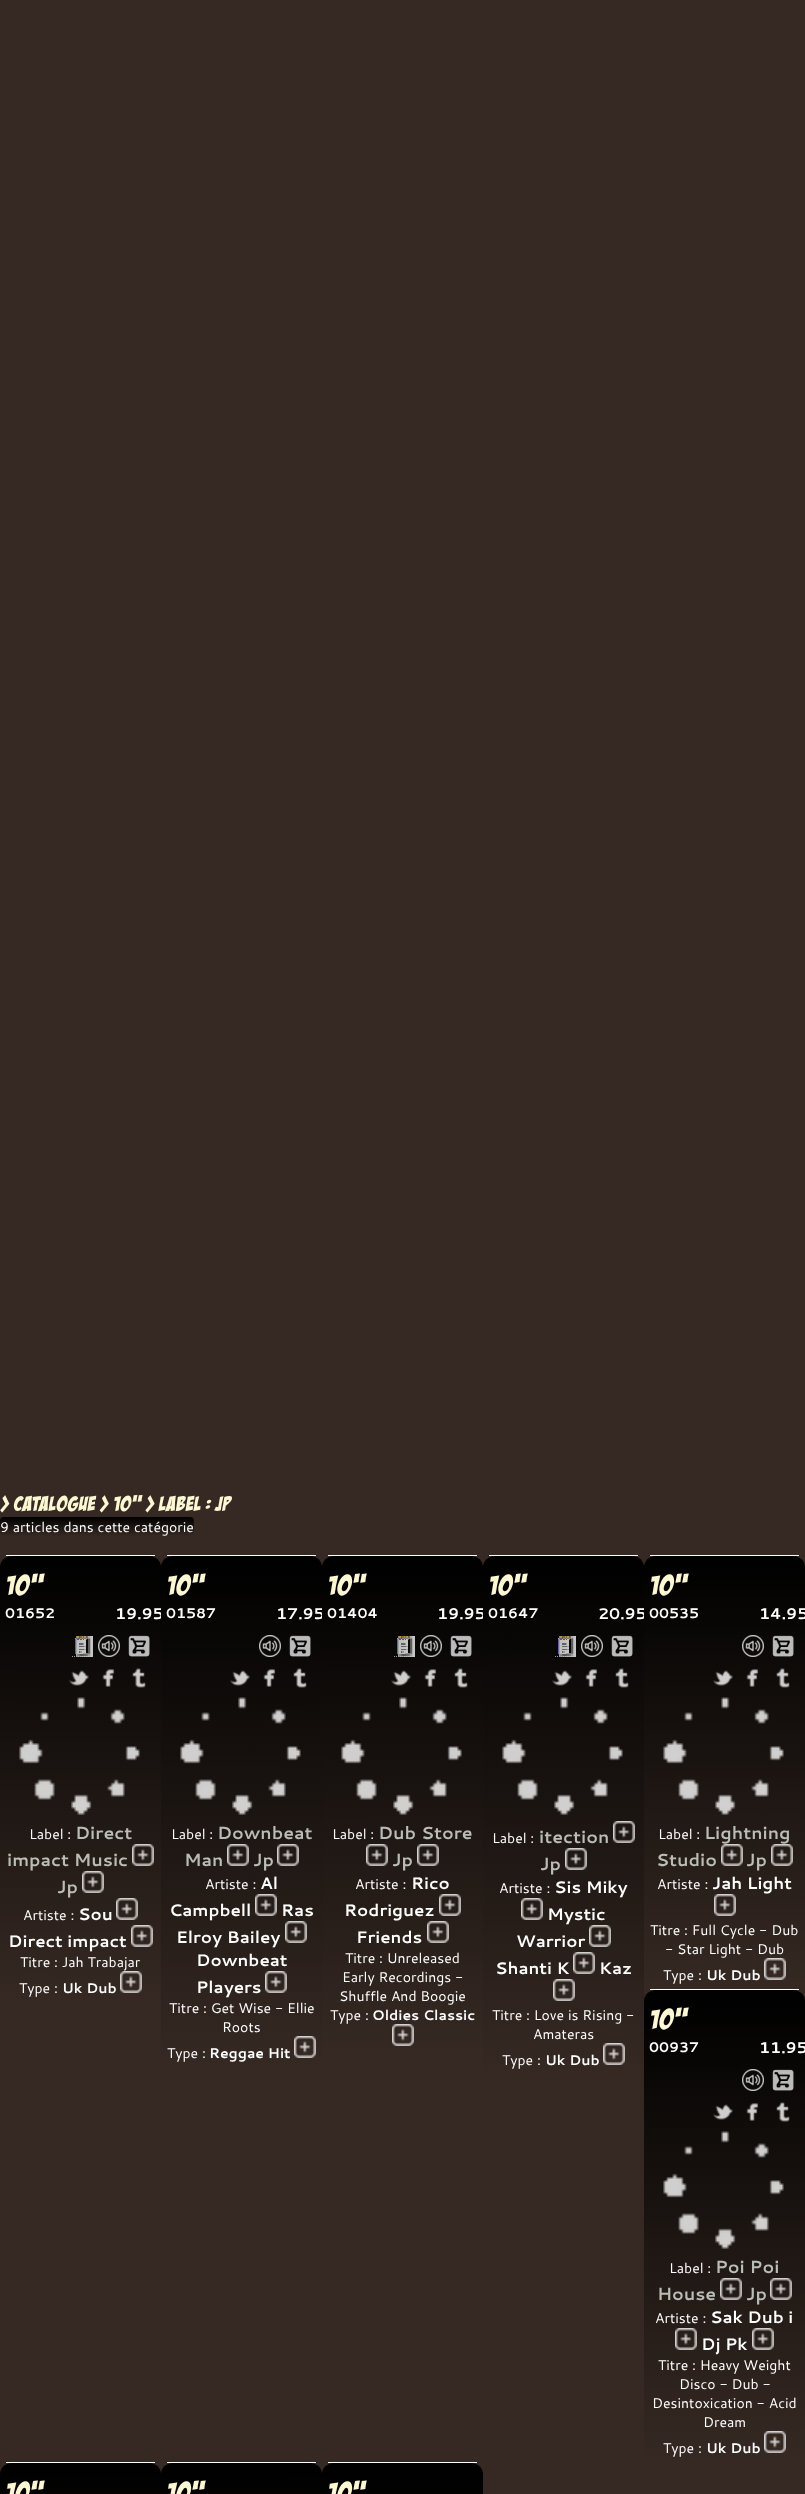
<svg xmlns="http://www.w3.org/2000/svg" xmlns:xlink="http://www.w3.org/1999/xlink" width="805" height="2494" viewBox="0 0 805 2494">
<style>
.cls-1{font:21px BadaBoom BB;fill:#fdf7d3}
.cls-2{font:500 14px Cantarell;fill:#ffffff}
.cls-3{font:28px BadaBoom BB;fill:#fdf7d3}
.cls-4{font:bold 14px Cantarell;fill:#ffffff}
.cls-5{font:bold 15.5px Cantarell;fill:#ffffff}
.cls-6{font:bold 17.5px Cantarell;fill:#babdb6}
.cls-7{font:bold 16.75px Cantarell;fill:#ffffff}
</style>
<defs>
<linearGradient id="g1" gradientUnits="userSpaceOnUse" x1="97" y1="1517" x2="97" y2="1536"><stop offset="0" stop-color="#000000"/><stop offset="1" stop-color="#362923"/></linearGradient>
<linearGradient id="g2" gradientUnits="userSpaceOnUse" x1="80" y1="1556" x2="81" y2="2002"><stop offset="0" stop-color="#000000"/><stop offset="1" stop-color="#362923"/></linearGradient>
<linearGradient id="g3" gradientUnits="userSpaceOnUse" x1="725" y1="1990" x2="725" y2="2462"><stop offset="0" stop-color="#000000"/><stop offset="1" stop-color="#362923"/></linearGradient>
<linearGradient id="g4" gradientUnits="userSpaceOnUse" x1="80" y1="2463" x2="81" y2="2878"><stop offset="0" stop-color="#000000"/><stop offset="1" stop-color="#362923"/></linearGradient>
<linearGradient id="g5" gradientUnits="userSpaceOnUse" x1="241" y1="2463" x2="242" y2="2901"><stop offset="0" stop-color="#000000"/><stop offset="1" stop-color="#362923"/></linearGradient>
<linearGradient id="g6" gradientUnits="userSpaceOnUse" x1="402" y1="2463" x2="403" y2="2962"><stop offset="0" stop-color="#000000"/><stop offset="1" stop-color="#362923"/></linearGradient>
<linearGradient id="g7" gradientUnits="userSpaceOnUse" x1="241" y1="1556" x2="242" y2="2067"><stop offset="0" stop-color="#000000"/><stop offset="1" stop-color="#362923"/></linearGradient>
<linearGradient id="g8" gradientUnits="userSpaceOnUse" x1="402" y1="1556" x2="403" y2="2055"><stop offset="0" stop-color="#000000"/><stop offset="1" stop-color="#362923"/></linearGradient>
<linearGradient id="g9" gradientUnits="userSpaceOnUse" x1="564" y1="1556" x2="564" y2="2074"><stop offset="0" stop-color="#000000"/><stop offset="1" stop-color="#362923"/></linearGradient>
<linearGradient id="g10" gradientUnits="userSpaceOnUse" x1="725" y1="1556" x2="725" y2="1989"><stop offset="0" stop-color="#000000"/><stop offset="1" stop-color="#362923"/></linearGradient>
</defs>
<rect width="100%" height="100%" fill="#362923"/>
<rect fill="url(#g1)" x="0" y="1517" width="194" height="19" rx="4"/>
<path fill="url(#g2)" d="M12 1556H149C156 1556 161 1561 161 1567V2002H0V1567C0 1561 5 1556 12 1556Z"/>
<rect fill="#ffffff" x="6" y="1555" width="149" height="1"/>
<image xlink:href="image0.png" x="75" y="1636" width="18" height="21"/>
<path fill="none" stroke="#c0c0c0" stroke-opacity="0.8" stroke-dasharray="1 1" d="M72 1656.5H94"/>
<image xlink:href="image1.png" x="98" y="1635" width="22" height="22"/>
<image xlink:href="image2.png" x="128" y="1635" width="22" height="22"/>
<image xlink:href="image3.png" x="69" y="1670" width="20" height="16"/>
<image xlink:href="image4.png" x="102" y="1669" width="13" height="18"/>
<image xlink:href="image5.png" x="132" y="1668" width="14" height="20"/>
<image xlink:href="image6.png" x="19" y="1697" width="121" height="118"/>
<image xlink:href="image7.png" x="132" y="1844" width="22" height="22"/>
<image xlink:href="image8.png" x="82" y="1871" width="22" height="22"/>
<image xlink:href="image9.png" x="116" y="1898" width="22" height="22"/>
<image xlink:href="image10.png" x="131" y="1925" width="22" height="22"/>
<image xlink:href="image11.png" x="120" y="1971" width="22" height="22"/>
<rect fill="#ffffff" x="167" y="1555" width="149" height="1"/>
<rect fill="#ffffff" x="328" y="1555" width="149" height="1"/>
<rect fill="#ffffff" x="489" y="1555" width="149" height="1"/>
<rect fill="#ffffff" x="650" y="1555" width="149" height="1"/>
<path fill="url(#g3)" d="M656 1990H793C800 1990 805 1995 805 2001V2462H644V2001C644 1995 649 1990 656 1990Z"/>
<rect fill="#ffffff" x="650" y="1989" width="149" height="1"/>
<image xlink:href="image58.png" x="742" y="2069" width="22" height="22"/>
<image xlink:href="image59.png" x="772" y="2069" width="22" height="22"/>
<image xlink:href="image60.png" x="713" y="2104" width="20" height="16"/>
<image xlink:href="image61.png" x="746" y="2103" width="13" height="18"/>
<image xlink:href="image62.png" x="776" y="2102" width="14" height="20"/>
<image xlink:href="image63.png" x="663" y="2131" width="121" height="118"/>
<image xlink:href="image64.png" x="720" y="2278" width="22" height="22"/>
<image xlink:href="image64.png" x="770" y="2278" width="22" height="22"/>
<image xlink:href="image65.png" x="675" y="2328" width="22" height="22"/>
<image xlink:href="image65.png" x="752" y="2328" width="22" height="22"/>
<image xlink:href="image66.png" x="764" y="2431" width="22" height="22"/>
<path fill="url(#g4)" d="M12 2463H149C156 2463 161 2468 161 2474V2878H0V2474C0 2468 5 2463 12 2463Z"/>
<rect fill="#ffffff" x="6" y="2462" width="149" height="1"/>
<path fill="url(#g5)" d="M173 2463H310C317 2463 322 2468 322 2474V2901H161V2474C161 2468 166 2463 173 2463Z"/>
<rect fill="#ffffff" x="167" y="2462" width="149" height="1"/>
<path fill="url(#g6)" d="M334 2463H471C478 2463 483 2468 483 2474V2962H322V2474C322 2468 327 2463 334 2463Z"/>
<rect fill="#ffffff" x="328" y="2462" width="149" height="1"/>
<text class="cls-1" x="0" y="1511">&gt; CATALOGUE &gt; 10" &gt; LABEL : Jp</text>
<text class="cls-2" x="0" y="1532">9 articles dans cette catégorie</text>
<text class="cls-3" x="5" y="1595">10"</text>
<text class="cls-4" x="5" y="1618">01652</text>
<text class="cls-5" x="115" y="1619">19.95</text>
<text class="cls-2" x="29" y="1839">Label :</text>
<text class="cls-6" x="75" y="1839">Direct</text>
<text class="cls-6" x="7" y="1866">impact Music</text>
<text class="cls-6" x="57" y="1893">Jp</text>
<text class="cls-2" x="23" y="1920">Artiste :</text>
<text class="cls-7" x="78" y="1920">Sou</text>
<text class="cls-7" x="8" y="1947">Direct impact</text>
<text class="cls-2" x="20" y="1967">Titre : Jah Trabajar</text>
<text class="cls-2" x="19" y="1993">Type :</text>
<text class="cls-4" x="62" y="1993">Uk Dub</text>
<path fill="url(#g7)" d="M173 1556H310C317 1556 322 1561 322 1567V2067H161V1567C161 1561 166 1556 173 1556Z"/>
<text class="cls-3" x="166" y="1595">10"</text>
<text class="cls-4" x="166" y="1618">01587</text>
<text class="cls-5" x="276" y="1619">17.95</text>
<image xlink:href="image12.png" x="259" y="1635" width="22" height="22"/>
<image xlink:href="image13.png" x="289" y="1635" width="22" height="22"/>
<image xlink:href="image14.png" x="230" y="1670" width="20" height="16"/>
<image xlink:href="image15.png" x="263" y="1669" width="13" height="18"/>
<image xlink:href="image16.png" x="293" y="1668" width="14" height="20"/>
<image xlink:href="image17.png" x="180" y="1697" width="121" height="118"/>
<text class="cls-2" x="171" y="1839">Label :</text>
<text class="cls-6" x="217" y="1839">Downbeat</text>
<text class="cls-6" x="184" y="1866">Man</text>
<image xlink:href="image18.png" x="227" y="1844" width="22" height="22"/>
<text class="cls-6" x="253" y="1866">Jp</text>
<image xlink:href="image19.png" x="277" y="1844" width="22" height="22"/>
<text class="cls-2" x="205" y="1889">Artiste :</text>
<text class="cls-7" x="260" y="1889">Al</text>
<text class="cls-7" x="169" y="1916">Campbell</text>
<image xlink:href="image20.png" x="255" y="1894" width="22" height="22"/>
<text class="cls-7" x="281" y="1916">Ras</text>
<text class="cls-7" x="176" y="1943">Elroy Bailey</text>
<image xlink:href="image21.png" x="285" y="1921" width="22" height="22"/>
<text class="cls-7"><tspan x="196" y="1966">Downbeat</tspan><tspan x="196" y="1993">Players</tspan></text>
<image xlink:href="image22.png" x="265" y="1971" width="22" height="22"/>
<text class="cls-2" x="169" y="2013">Titre : Get Wise - Ellie</text>
<text class="cls-2" x="222" y="2032">Roots</text>
<text class="cls-2" x="167" y="2058">Type :</text>
<text class="cls-4" x="209" y="2058">Reggae Hit</text>
<image xlink:href="image23.png" x="294" y="2036" width="22" height="22"/>
<path fill="url(#g8)" d="M334 1556H471C478 1556 483 1561 483 1567V2055H322V1567C322 1561 327 1556 334 1556Z"/>
<text class="cls-3" x="327" y="1595">10"</text>
<text class="cls-4" x="327" y="1618">01404</text>
<text class="cls-5" x="437" y="1619">19.95</text>
<image xlink:href="image24.png" x="397" y="1636" width="18" height="21"/>
<path fill="none" stroke="#c0c0c0" stroke-opacity="0.8" stroke-dasharray="1 1" d="M394 1656.5H416"/>
<image xlink:href="image25.png" x="420" y="1635" width="22" height="22"/>
<image xlink:href="image26.png" x="450" y="1635" width="22" height="22"/>
<image xlink:href="image27.png" x="391" y="1670" width="20" height="16"/>
<image xlink:href="image28.png" x="424" y="1669" width="13" height="18"/>
<image xlink:href="image29.png" x="454" y="1668" width="14" height="20"/>
<image xlink:href="image30.png" x="341" y="1697" width="121" height="118"/>
<text class="cls-2" x="332" y="1839">Label :</text>
<text class="cls-6" x="378" y="1839">Dub Store</text>
<image xlink:href="image31.png" x="366" y="1844" width="22" height="22"/>
<text class="cls-6" x="392" y="1866">Jp</text>
<image xlink:href="image32.png" x="417" y="1844" width="22" height="22"/>
<text class="cls-2" x="355" y="1889">Artiste :</text>
<text class="cls-7" x="411" y="1889">Rico</text>
<text class="cls-7" x="344" y="1916">Rodriguez</text>
<image xlink:href="image33.png" x="439" y="1894" width="22" height="22"/>
<text class="cls-7" x="356" y="1943">Friends</text>
<image xlink:href="image34.png" x="427" y="1921" width="22" height="22"/>
<text class="cls-2" x="345" y="1963">Titre : Unreleased</text>
<text class="cls-2" x="342" y="1982">Early Recordings -</text>
<text class="cls-2" x="339" y="2001">Shuffle And Boogie</text>
<text class="cls-2" x="330" y="2020">Type :</text>
<text class="cls-4" x="372" y="2020">Oldies Classic</text>
<image xlink:href="image35.png" x="392" y="2024" width="22" height="22"/>
<path fill="url(#g9)" d="M495 1556H632C639 1556 644 1561 644 1567V2074H483V1567C483 1561 488 1556 495 1556Z"/>
<text class="cls-3" x="488" y="1595">10"</text>
<text class="cls-4" x="488" y="1618">01647</text>
<text class="cls-5" x="598" y="1619">20.95</text>
<image xlink:href="image36.png" x="558" y="1636" width="18" height="21"/>
<path fill="none" stroke="#c0c0c0" stroke-opacity="0.8" stroke-dasharray="1 1" d="M555 1656.5H577"/>
<image xlink:href="image37.png" x="581" y="1635" width="22" height="22"/>
<image xlink:href="image38.png" x="611" y="1635" width="22" height="22"/>
<image xlink:href="image39.png" x="552" y="1670" width="20" height="16"/>
<image xlink:href="image40.png" x="585" y="1669" width="13" height="18"/>
<image xlink:href="image41.png" x="615" y="1668" width="14" height="20"/>
<image xlink:href="image42.png" x="502" y="1697" width="121" height="118"/>
<text class="cls-2" x="492" y="1843">Label :</text>
<text class="cls-6" x="539" y="1843">itection</text>
<image xlink:href="image43.png" x="613" y="1821" width="22" height="22"/>
<text class="cls-6" x="540" y="1870">Jp</text>
<image xlink:href="image44.png" x="565" y="1848" width="22" height="22"/>
<text class="cls-2" x="499" y="1893">Artiste :</text>
<text class="cls-7" x="554" y="1893">Sis Miky</text>
<image xlink:href="image45.png" x="521" y="1898" width="22" height="22"/>
<text class="cls-7" x="547" y="1920">Mystic</text>
<text class="cls-7" x="516" y="1947">Warrior</text>
<image xlink:href="image46.png" x="589" y="1925" width="22" height="22"/>
<text class="cls-7" x="495" y="1974">Shanti K</text>
<image xlink:href="image47.png" x="573" y="1952" width="22" height="22"/>
<text class="cls-7" x="599" y="1974">Kaz</text>
<image xlink:href="image48.png" x="553" y="1979" width="22" height="22"/>
<text class="cls-2" x="492" y="2020">Titre : Love is Rising -</text>
<text class="cls-2" x="533" y="2039">Amateras</text>
<text class="cls-2" x="502" y="2065">Type :</text>
<text class="cls-4" x="545" y="2065">Uk Dub</text>
<image xlink:href="image23.png" x="603" y="2043" width="22" height="22"/>
<path fill="url(#g10)" d="M656 1556H793C800 1556 805 1561 805 1567V1989H644V1567C644 1561 649 1556 656 1556Z"/>
<text class="cls-3" x="649" y="1595">10"</text>
<text class="cls-4" x="649" y="1618">00535</text>
<text class="cls-5" x="759" y="1619">14.95</text>
<image xlink:href="image49.png" x="742" y="1635" width="22" height="22"/>
<image xlink:href="image50.png" x="772" y="1635" width="22" height="22"/>
<image xlink:href="image51.png" x="713" y="1670" width="20" height="16"/>
<image xlink:href="image52.png" x="746" y="1669" width="13" height="18"/>
<image xlink:href="image53.png" x="776" y="1668" width="14" height="20"/>
<image xlink:href="image54.png" x="663" y="1697" width="121" height="118"/>
<text class="cls-2" x="658" y="1839">Label :</text>
<text class="cls-6" x="704" y="1839">Lightning</text>
<text class="cls-6" x="656" y="1866">Studio</text>
<image xlink:href="image55.png" x="721" y="1844" width="22" height="22"/>
<text class="cls-6" x="746" y="1866">Jp</text>
<image xlink:href="image55.png" x="771" y="1844" width="22" height="22"/>
<text class="cls-2" x="657" y="1889">Artiste :</text>
<text class="cls-7" x="712" y="1889">Jah Light</text>
<image xlink:href="image56.png" x="714" y="1894" width="22" height="22"/>
<text class="cls-2" x="650" y="1935">Titre : Full Cycle - Dub</text>
<text class="cls-2" x="665" y="1954">- Star Light - Dub</text>
<text class="cls-2" x="663" y="1980">Type :</text>
<text class="cls-4" x="706" y="1980">Uk Dub</text>
<image xlink:href="image57.png" x="764" y="1958" width="22" height="22"/>
<text class="cls-3" x="649" y="2029">10"</text>
<text class="cls-4" x="649" y="2052">00937</text>
<text class="cls-5" x="759" y="2053">11.95</text>
<text class="cls-2" x="669" y="2273">Label :</text>
<text class="cls-6" x="715" y="2273">Poi Poi</text>
<text class="cls-6" x="657" y="2300">House</text>
<text class="cls-6" x="746" y="2300">Jp</text>
<text class="cls-2" x="655" y="2323">Artiste :</text>
<text class="cls-7" x="710" y="2323">Sak Dub i</text>
<text class="cls-7" x="701" y="2350">Dj Pk</text>
<text class="cls-2" x="658" y="2370">Titre : Heavy Weight</text>
<text class="cls-2" x="679" y="2389">Disco - Dub -</text>
<text class="cls-2" x="652" y="2408">Desintoxication - Acid</text>
<text class="cls-2" x="703" y="2427">Dream</text>
<text class="cls-2" x="663" y="2453">Type :</text>
<text class="cls-4" x="706" y="2453">Uk Dub</text>
<text class="cls-3" x="5" y="2502">10"</text>
<text class="cls-3" x="166" y="2502">10"</text>
<text class="cls-3" x="327" y="2502">10"</text>
</svg>
